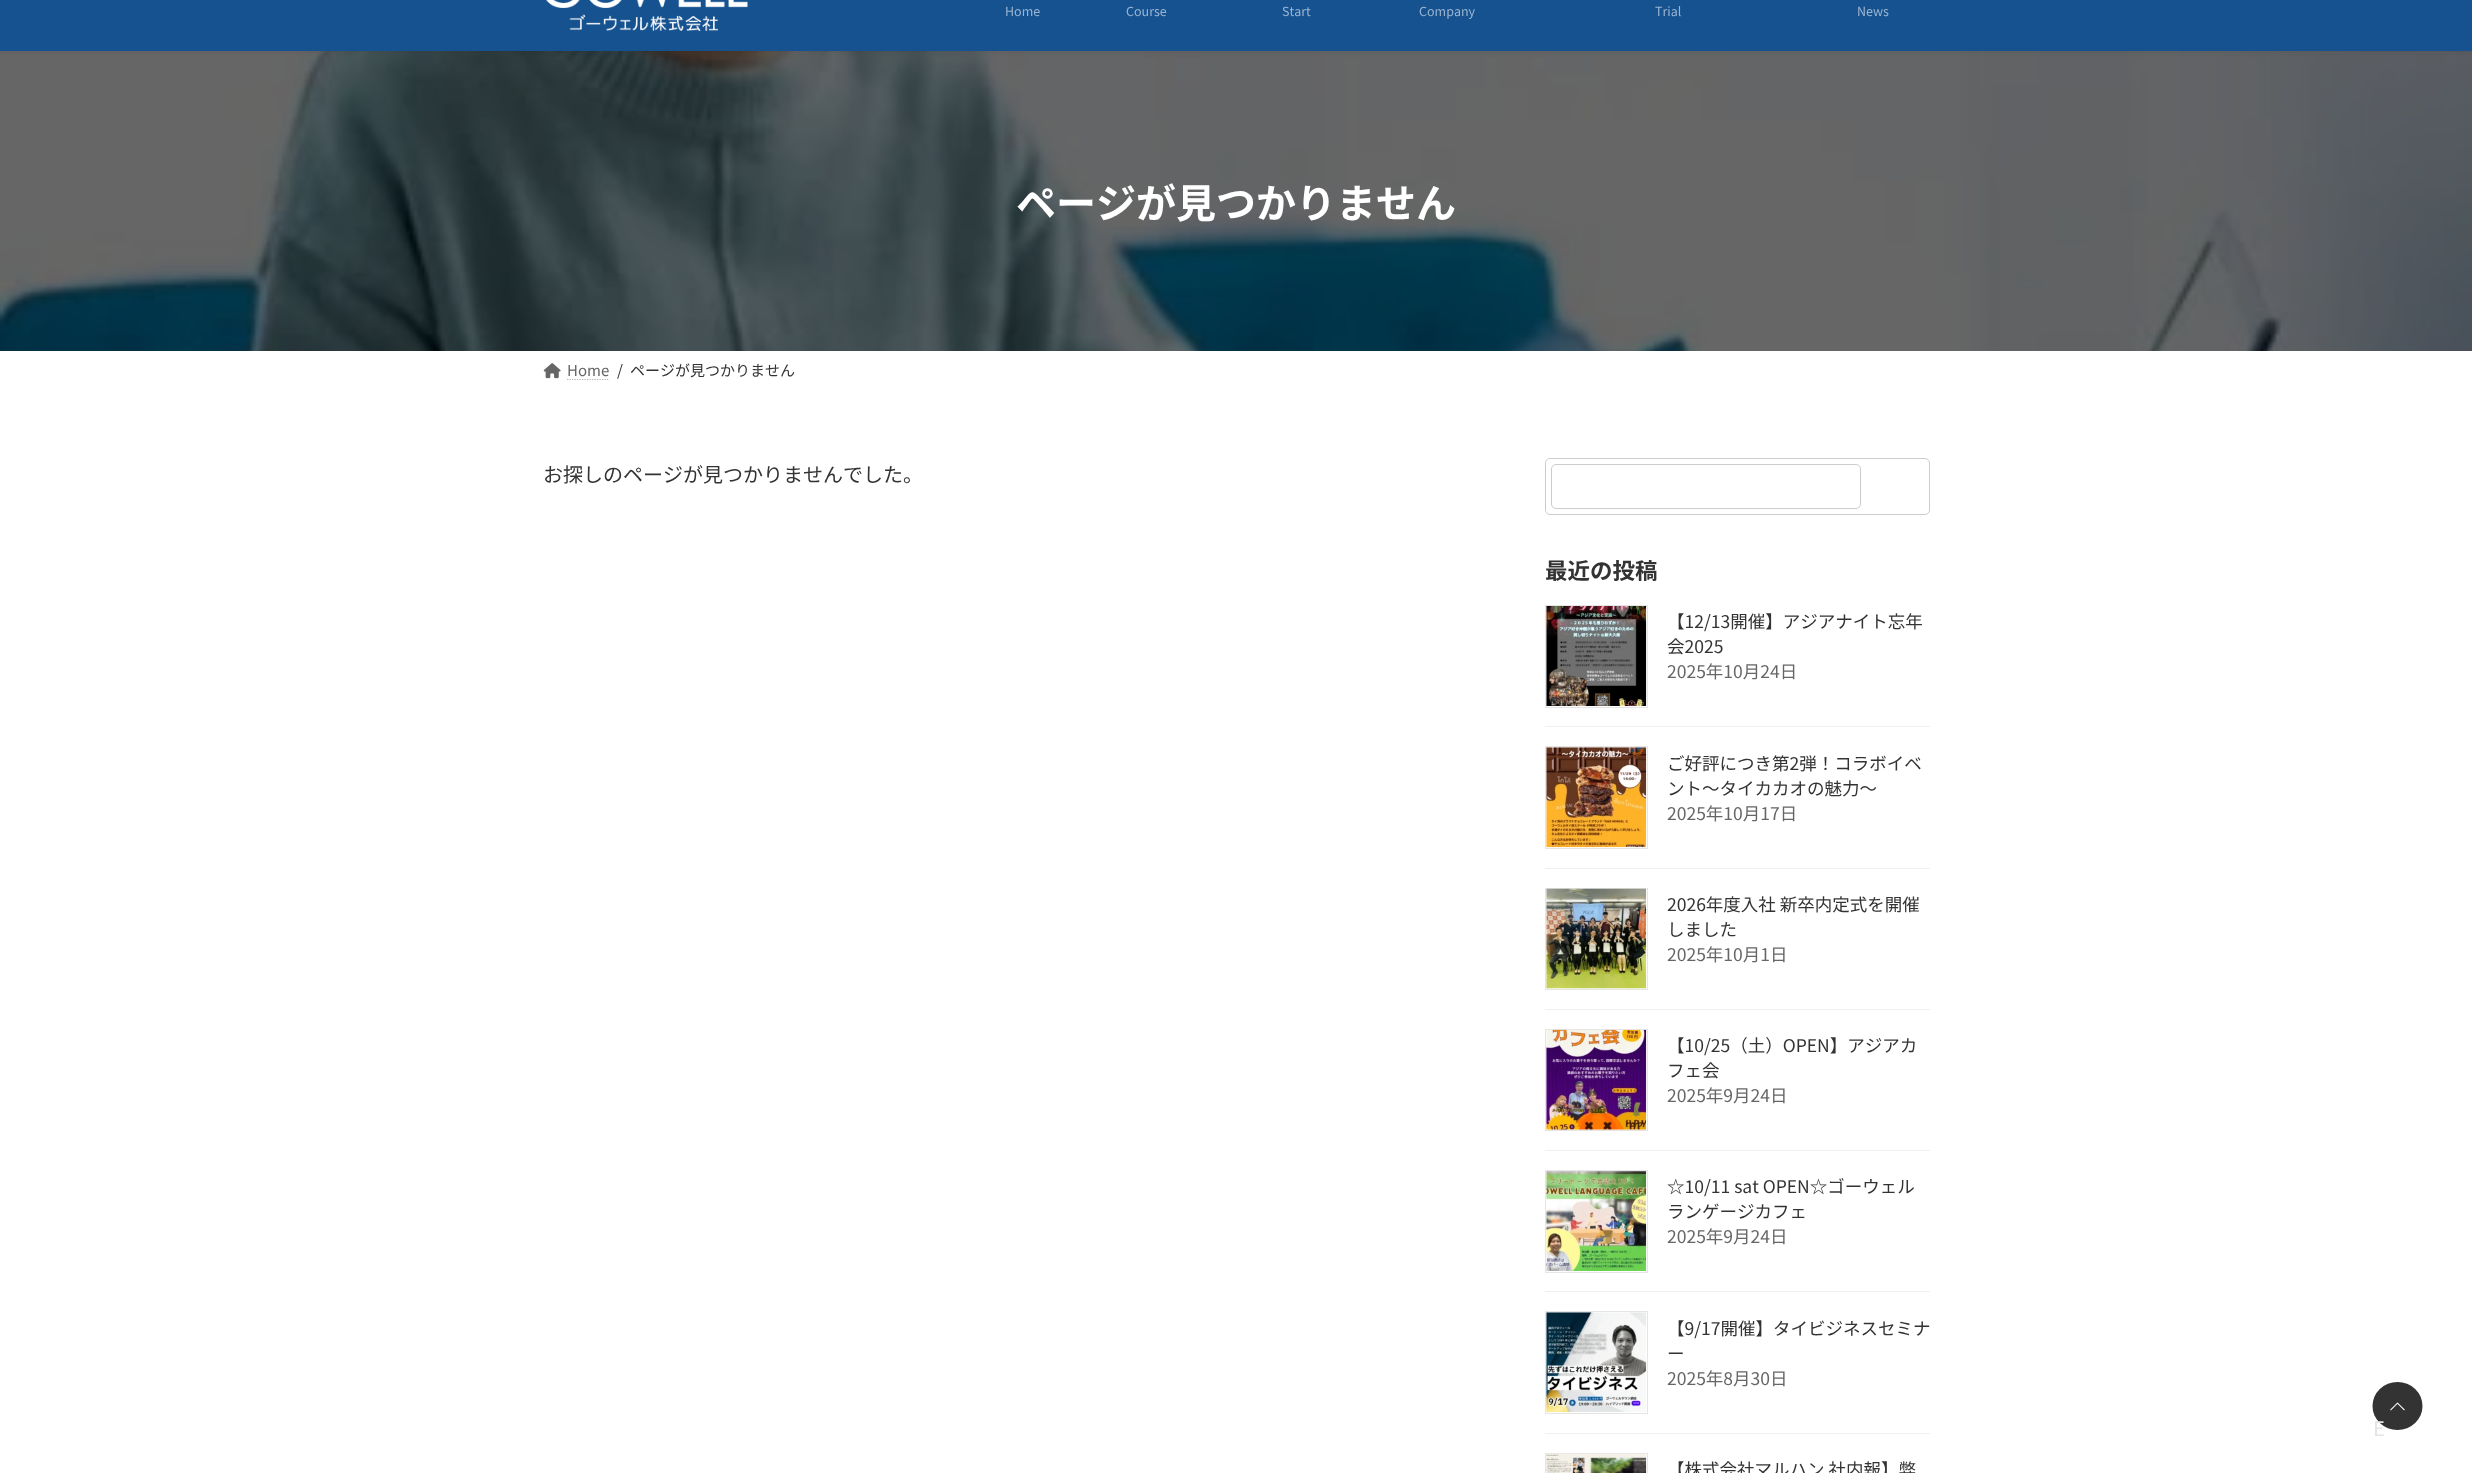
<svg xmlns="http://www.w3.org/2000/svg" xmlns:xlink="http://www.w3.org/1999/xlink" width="2472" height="1473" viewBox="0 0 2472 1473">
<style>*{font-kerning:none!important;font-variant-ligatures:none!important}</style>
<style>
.cls-1{font:12.5px Noto Sans JP;fill:#9bb5d0}
.cls-2{font:bold 40px Noto Sans JP;fill:#ffffff}
.cls-3{font:15px Noto Sans JP;fill:#666666}
.cls-4{font:15px Noto Sans JP;fill:#333333}
.cls-5{font:20px Noto Sans JP;fill:#333333}
.cls-6{font:bold 22.5px Noto Sans JP;fill:#333333}
.cls-7{font:17.5px Noto Sans JP;fill:#333333}
.cls-8{font:17.5px Noto Sans JP;fill:#666666}
.cls-9{font:20px Noto Sans JP;fill:#e4e4e4}
</style>
<rect width="100%" height="100%" fill="#ffffff"/>
<image xlink:href="image1.png" x="0" y="51" width="2472" height="300"/>
<rect fill="#000000" fill-opacity="0.05" filter="blur(2px)" x="0" y="-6" width="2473" height="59"/>
<rect fill="#165290" x="0" y="0" width="2472" height="51"/>
<image xlink:href="image0.png" x="546" y="0" width="202" height="31"/>
<image xlink:href="image2.png" x="543" y="363" width="18" height="16"/>
<path fill="none" stroke="#b3b3b3" stroke-width="1.2" stroke-dasharray="1.25 1.25" d="M567 379.5H609.5"/>
<rect fill="none" stroke="#cccccc" x="1545.5" y="458.5" width="384" height="56" rx="4.5"/>
<rect fill="none" stroke="#cccccc" x="1551.5" y="464.5" width="309" height="44" rx="4.5"/>
<rect fill="#f0f0f0" x="1545" y="726" width="385" height="1"/>
<rect fill="none" stroke="#e5e5e5" x="1545.5" y="605.5" width="102" height="102"/>
<image xlink:href="image3.png" x="1546" y="606" width="101" height="100"/>
<rect fill="#f0f0f0" x="1545" y="868" width="385" height="1"/>
<rect fill="none" stroke="#e5e5e5" x="1545.5" y="746.5" width="102" height="102"/>
<image xlink:href="image4.png" x="1546" y="747" width="101" height="101"/>
<rect fill="#f0f0f0" x="1545" y="1009" width="385" height="1"/>
<rect fill="none" stroke="#e5e5e5" x="1545.5" y="888.5" width="102" height="101"/>
<image xlink:href="image5.png" x="1546" y="888" width="101" height="101"/>
<rect fill="#f0f0f0" x="1545" y="1150" width="385" height="1"/>
<rect fill="none" stroke="#e5e5e5" x="1545.5" y="1029.5" width="102" height="101"/>
<image xlink:href="image6.png" x="1546" y="1029" width="101" height="101"/>
<rect fill="#f0f0f0" x="1545" y="1291" width="385" height="1"/>
<rect fill="none" stroke="#e5e5e5" x="1545.5" y="1170.5" width="102" height="102"/>
<image xlink:href="image7.png" x="1546" y="1171" width="101" height="100"/>
<rect fill="#f0f0f0" x="1545" y="1433" width="385" height="1"/>
<rect fill="none" stroke="#e5e5e5" x="1545.5" y="1311.5" width="102" height="102"/>
<image xlink:href="image8.png" x="1546" y="1312" width="101" height="101"/>
<rect fill="none" stroke="#e5e5e5" x="1545.5" y="1453.5" width="102" height="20"/>
<image xlink:href="image9.png" x="1546" y="1453" width="101" height="20"/>
<ellipse fill="#333333" cx="2397.5" cy="1406" rx="25" ry="24"/>
<image xlink:href="image10.png" x="2390" y="1402" width="15" height="9"/>
<text class="cls-1" x="1005" y="16">Home</text>
<text class="cls-1" x="1126" y="16">Course</text>
<text class="cls-1" x="1282" y="16">Start</text>
<text class="cls-1" x="1419" y="16">Company</text>
<text class="cls-1" x="1655" y="16">Trial</text>
<text class="cls-1" x="1857" y="16">News</text>
<text class="cls-2" x="1016" y="218">ページが見つかりません</text>
<text class="cls-3" x="567" y="376">Home</text>
<text class="cls-4" x="617" y="376">/</text>
<text class="cls-4" x="630" y="376">ページが見つかりません</text>
<text class="cls-5" x="543" y="482">お探しのページが見つかりませんでした。</text>
<text class="cls-6" x="1545" y="579">最近の投稿</text>
<text class="cls-7"><tspan x="1667" y="628">【12/13開催】アジアナイト忘年</tspan><tspan x="1667" y="653">会2025</tspan></text>
<text class="cls-8" x="1667" y="678">2025年10月24日</text>
<text class="cls-7"><tspan x="1667" y="770">ご好評につき第2弾！コラボイベ</tspan><tspan x="1667" y="795">ント～タイカカオの魅力～</tspan></text>
<text class="cls-8" x="1667" y="820">2025年10月17日</text>
<text class="cls-7"><tspan x="1667" y="911">2026年度入社 新卒内定式を開催</tspan><tspan x="1667" y="936">しました</tspan></text>
<text class="cls-8" x="1667" y="961">2025年10月1日</text>
<text class="cls-7"><tspan x="1667" y="1052">【10/25（土）OPEN】アジアカ</tspan><tspan x="1667" y="1077">フェ会</tspan></text>
<text class="cls-8" x="1667" y="1102">2025年9月24日</text>
<text class="cls-7"><tspan x="1667" y="1193">☆10/11 sat OPEN☆ゴーウェル</tspan><tspan x="1667" y="1218">ランゲージカフェ</tspan></text>
<text class="cls-8" x="1667" y="1243">2025年9月24日</text>
<text class="cls-7"><tspan x="1667" y="1335">【9/17開催】タイビジネスセミナ</tspan><tspan x="1667" y="1360">ー</tspan></text>
<text class="cls-8" x="1667" y="1385">2025年8月30日</text>
<text class="cls-7" x="1667" y="1476">【株式会社マルハン 社内報】弊</text>
<text class="cls-9" x="2373" y="1436">E</text>
</svg>
